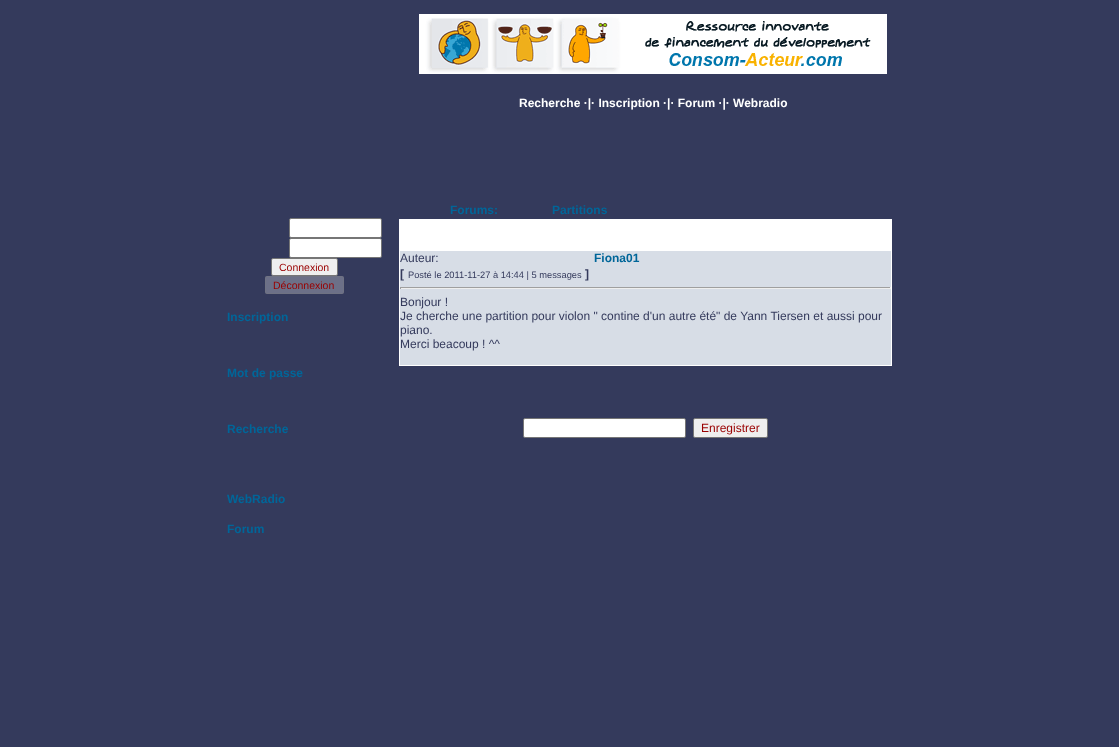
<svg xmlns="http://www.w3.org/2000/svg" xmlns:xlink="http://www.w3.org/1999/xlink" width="1119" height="747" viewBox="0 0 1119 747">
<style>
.cls-1{font:bold 12px Liberation Sans;fill:#ffffff}
.cls-2{font:10.5px Liberation Sans;fill:#990000}
.cls-3{font:bold 12px Liberation Sans;fill:#006699}
.cls-4{font:12px Liberation Sans;fill:#343a5c}
.cls-5{font:bold 12px Liberation Sans;fill:#343a5c}
.cls-6{font:9.3px Liberation Sans;fill:#343a5c}
.cls-7{font:12px Liberation Sans;fill:#990000}
</style>
<rect width="100%" height="100%" fill="#343a5c"/>
<image xlink:href="image0.png" x="419" y="14" width="468" height="60"/>
<rect fill="#ffffff" stroke="#767676" x="289.5" y="218.5" width="92" height="19" rx="1.5"/>
<rect fill="#ffffff" stroke="#767676" x="289.5" y="238.5" width="92" height="19" rx="1.5"/>
<rect fill="#efefef" stroke="#767676" x="271.5" y="258.5" width="66" height="17" rx="1.5"/>
<rect fill="#6c7088" x="265" y="276" width="79" height="18" rx="2"/>
<rect fill="none" stroke="#767676" stroke-opacity="0.3" x="265.5" y="276.5" width="78" height="17" rx="1.5"/>
<rect fill="#ffffff" x="399" y="219" width="493" height="147"/>
<rect fill="#d7dde6" x="400" y="251" width="491" height="114"/>
<rect fill="#9f9f9f" x="400" y="287" width="491" height="1"/>
<rect fill="#eeeeee" x="890" y="287" width="1" height="2"/>
<rect fill="#eeeeee" x="400" y="288" width="491" height="1"/>
<rect fill="#9f9f9f" x="400" y="287" width="1" height="2"/>
<rect fill="#ffffff" stroke="#767676" x="523.5" y="418.5" width="162" height="19" rx="1.5"/>
<rect fill="#efefef" stroke="#767676" x="693.5" y="418.5" width="74" height="19" rx="1.5"/>
<text class="cls-1" x="519" y="107">Recherche ·|· Inscription ·|· Forum ·|· Webradio</text>
<text class="cls-2" x="279" y="271">Connexion</text>
<text class="cls-2" x="273" y="289">Déconnexion</text>
<text class="cls-3" x="227" y="321">Inscription</text>
<text class="cls-3" x="227" y="377">Mot de passe</text>
<text class="cls-3" x="227" y="433">Recherche</text>
<text class="cls-3" x="227" y="503">WebRadio</text>
<text class="cls-3" x="227" y="533">Forum</text>
<text class="cls-3" x="450" y="214">Forums:</text>
<text class="cls-3" x="552" y="214">Partitions</text>
<text class="cls-4" x="400" y="262">Auteur:</text>
<text class="cls-3" x="594" y="262">Fiona01</text>
<text class="cls-5" x="400" y="278">[</text>
<text class="cls-6" x="408" y="278">Posté le 2011-11-27 à 14:44 | 5 messages</text>
<text class="cls-5" x="585" y="278">]</text>
<text class="cls-4"><tspan x="400" y="306">Bonjour !</tspan><tspan x="400" y="320">Je cherche une partition pour violon " contine d'un autre été" de Yann Tiersen et aussi pour</tspan><tspan x="400" y="334">piano.</tspan><tspan x="400" y="348">Merci beacoup ! ^^</tspan></text>
<text class="cls-7" x="701" y="432">Enregistrer</text>
</svg>
